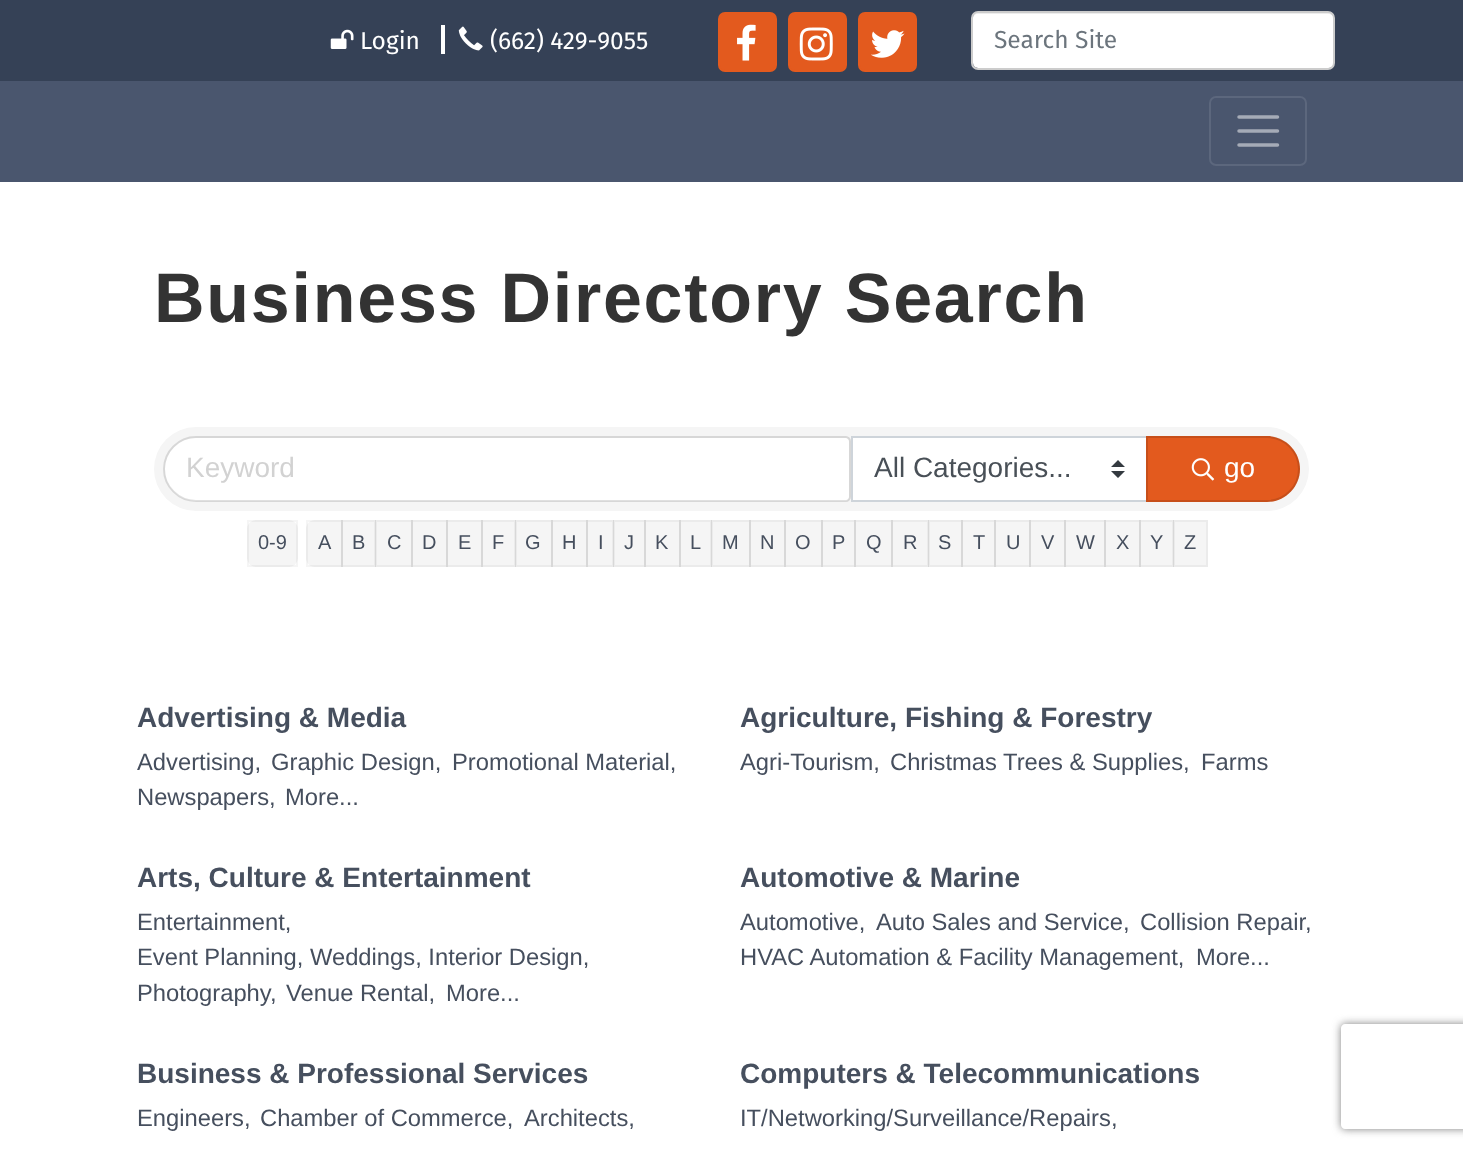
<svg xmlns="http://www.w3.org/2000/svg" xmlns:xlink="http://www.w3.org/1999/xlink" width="1463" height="1152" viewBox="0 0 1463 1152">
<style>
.cls-1{font:24.5px Fira Sans;fill:#ffffff}
.cls-2{font:24.5px Fira Sans;fill:#6c757d}
.cls-3{font:bold 70px Liberation Sans;letter-spacing:1.75px;fill:#333333}
.cls-4{font:28px Liberation Sans;fill:#d2d2d2}
.cls-5{font:28px Liberation Sans;fill:#495057}
.cls-6{font:28px Liberation Sans;fill:#ffffff}
.cls-7{font:20px Liberation Sans;fill:#464f5e}
.cls-8{font:bold 28px Liberation Sans;fill:#464f5e}
.cls-9{font:23.75px Liberation Sans;fill:#464f5e}
</style>
<defs>
<clipPath id="clip1"><path d="M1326 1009H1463V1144H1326ZM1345 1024H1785C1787 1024 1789 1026 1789 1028V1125C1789 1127 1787 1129 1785 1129H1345C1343 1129 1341 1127 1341 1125V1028C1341 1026 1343 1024 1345 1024Z" clip-rule="evenodd"/></clipPath>
</defs>
<rect width="100%" height="100%" fill="#ffffff"/>
<rect fill="#354156" x="0" y="0" width="1463" height="81"/>
<image xlink:href="image0.png" x="330" y="29" width="24" height="20"/>
<rect fill="#ffffff" x="441" y="25" width="4" height="29"/>
<image xlink:href="image1.png" x="458" y="26" width="25" height="25"/>
<rect fill="#e35a1e" stroke="#e35a1e" stroke-width="2" x="719" y="13" width="57" height="58" rx="6"/>
<image xlink:href="image2.png" x="737" y="24" width="19" height="37"/>
<rect fill="#e35a1e" stroke="#e35a1e" stroke-width="2" x="789" y="13" width="57" height="58" rx="6"/>
<image xlink:href="image3.png" x="799" y="27" width="34" height="34"/>
<rect fill="#e35a1e" stroke="#e35a1e" stroke-width="2" x="859" y="13" width="57" height="58" rx="6"/>
<image xlink:href="image4.png" x="871" y="30" width="34" height="28"/>
<rect fill="#ffffff" x="973" y="12" width="361" height="56" rx="5"/>
<path fill="#000000" fill-opacity="0.07" d="M978 14H1328C1331 14 1334 16 1334 19C1334 16 1333 12 1329 12H978C974 12 973 16 973 19C973 16 975 14 978 14Z"/>
<rect fill="none" stroke="#cccccc" stroke-width="2" x="972" y="12" width="362" height="57" rx="6"/>
<rect fill="#4a566e" x="0" y="81" width="1463" height="101"/>
<rect fill="none" stroke="#5c677d" stroke-width="2" x="1210" y="97" width="96" height="68" rx="6"/>
<path fill="none" stroke="#a5abb7" stroke-width="3.5" stroke-linecap="round" d="M1239 117H1277.5M1239 131H1277.5M1239 145H1277.5"/>
<rect fill="#f5f5f5" x="154" y="427" width="1155" height="84" rx="42"/>
<path fill="#ffffff" d="M196.5 438H845C847 438 849 440 849 442V497C849 499 847 501 845 501H196.5C179 501 165 487 165 469.5C165 452 179 438 196.5 438Z"/>
<path fill="none" stroke="#000000" stroke-opacity="0.12" stroke-width="2" d="M196 437H846C848 437 850 439 850 441V497C850 499 848 501 846 501H196C178.5 501 164 486.5 164 469C164 451.5 178.5 437 196 437Z"/>
<rect fill="#ffffff" x="853" y="438" width="293" height="62"/>
<path fill="#343a40" d="M1118 460L1111 467H1125ZM1118 478L1111 471H1125Z"/>
<rect fill="none" stroke="#ced4da" stroke-width="2" x="852" y="437" width="295" height="64"/>
<path fill="#e35a1e" d="M1146 436H1267C1285 436 1300 451 1300 469C1300 487 1285 502 1267 502H1146Z"/>
<path fill="none" stroke="#000000" stroke-opacity="0.12" stroke-width="2" d="M1147 437H1267C1284.5 437 1299 451.5 1299 469C1299 486.5 1284.5 501 1267 501H1147Z"/>
<image xlink:href="image5.png" x="1191" y="458" width="24" height="23"/>
<rect fill="#f5f5f5" x="247" y="520" width="51" height="47" rx="9"/>
<rect fill="none" stroke="#000000" stroke-opacity="0.04" stroke-width="2" x="248" y="521" width="49" height="45"/>
<path fill="#f5f5f5" d="M315 520H343V567H315C310 567 306 563 306 558V529C306 524 310 520 315 520Z"/>
<rect fill="none" stroke="#000000" stroke-opacity="0.04" stroke-width="2" x="307" y="521" width="35" height="45"/>
<rect fill="#000000" fill-opacity="0.04" x="341" y="520" width="35" height="47"/>
<rect fill="none" stroke="#000000" stroke-opacity="0.04" stroke-width="2" x="342" y="521" width="33" height="45"/>
<rect fill="#000000" fill-opacity="0.04" x="375" y="520" width="38" height="47"/>
<rect fill="none" stroke="#000000" stroke-opacity="0.04" stroke-width="2" x="376" y="521" width="36" height="45"/>
<rect fill="#000000" fill-opacity="0.04" x="411" y="520" width="37" height="47"/>
<rect fill="none" stroke="#000000" stroke-opacity="0.04" stroke-width="2" x="412" y="521" width="35" height="45"/>
<rect fill="#000000" fill-opacity="0.04" x="446" y="520" width="37" height="47"/>
<rect fill="none" stroke="#000000" stroke-opacity="0.04" stroke-width="2" x="447" y="521" width="35" height="45"/>
<rect fill="#000000" fill-opacity="0.04" x="481" y="520" width="35" height="47"/>
<rect fill="none" stroke="#000000" stroke-opacity="0.04" stroke-width="2" x="482" y="521" width="33" height="45"/>
<rect fill="#000000" fill-opacity="0.04" x="515" y="520" width="38" height="47"/>
<rect fill="none" stroke="#000000" stroke-opacity="0.04" stroke-width="2" x="516" y="521" width="36" height="45"/>
<rect fill="#000000" fill-opacity="0.04" x="551" y="520" width="37" height="47"/>
<rect fill="none" stroke="#000000" stroke-opacity="0.04" stroke-width="2" x="552" y="521" width="35" height="45"/>
<rect fill="#000000" fill-opacity="0.04" x="586" y="520" width="28" height="47"/>
<rect fill="none" stroke="#000000" stroke-opacity="0.04" stroke-width="2" x="587" y="521" width="26" height="45"/>
<rect fill="#000000" fill-opacity="0.04" x="613" y="520" width="33" height="47"/>
<rect fill="none" stroke="#000000" stroke-opacity="0.04" stroke-width="2" x="614" y="521" width="31" height="45"/>
<rect fill="#000000" fill-opacity="0.04" x="644" y="520" width="37" height="47"/>
<rect fill="none" stroke="#000000" stroke-opacity="0.04" stroke-width="2" x="645" y="521" width="35" height="45"/>
<rect fill="#000000" fill-opacity="0.04" x="679" y="520" width="33" height="47"/>
<rect fill="none" stroke="#000000" stroke-opacity="0.04" stroke-width="2" x="680" y="521" width="31" height="45"/>
<rect fill="#000000" fill-opacity="0.04" x="711" y="520" width="40" height="47"/>
<rect fill="none" stroke="#000000" stroke-opacity="0.04" stroke-width="2" x="712" y="521" width="38" height="45"/>
<rect fill="#000000" fill-opacity="0.04" x="749" y="520" width="37" height="47"/>
<rect fill="none" stroke="#000000" stroke-opacity="0.04" stroke-width="2" x="750" y="521" width="35" height="45"/>
<rect fill="#000000" fill-opacity="0.04" x="784" y="520" width="39" height="47"/>
<rect fill="none" stroke="#000000" stroke-opacity="0.04" stroke-width="2" x="785" y="521" width="37" height="45"/>
<rect fill="#000000" fill-opacity="0.04" x="821" y="520" width="35" height="47"/>
<rect fill="none" stroke="#000000" stroke-opacity="0.04" stroke-width="2" x="822" y="521" width="33" height="45"/>
<rect fill="#000000" fill-opacity="0.04" x="854" y="520" width="39" height="47"/>
<rect fill="none" stroke="#000000" stroke-opacity="0.04" stroke-width="2" x="855" y="521" width="37" height="45"/>
<rect fill="#000000" fill-opacity="0.04" x="891" y="520" width="38" height="47"/>
<rect fill="none" stroke="#000000" stroke-opacity="0.04" stroke-width="2" x="892" y="521" width="36" height="45"/>
<rect fill="#000000" fill-opacity="0.04" x="928" y="520" width="35" height="47"/>
<rect fill="none" stroke="#000000" stroke-opacity="0.04" stroke-width="2" x="929" y="521" width="33" height="45"/>
<rect fill="#000000" fill-opacity="0.04" x="961" y="520" width="35" height="47"/>
<rect fill="none" stroke="#000000" stroke-opacity="0.04" stroke-width="2" x="962" y="521" width="33" height="45"/>
<rect fill="#000000" fill-opacity="0.04" x="994" y="520" width="37" height="47"/>
<rect fill="none" stroke="#000000" stroke-opacity="0.04" stroke-width="2" x="995" y="521" width="35" height="45"/>
<rect fill="#000000" fill-opacity="0.04" x="1029" y="520" width="37" height="47"/>
<rect fill="none" stroke="#000000" stroke-opacity="0.04" stroke-width="2" x="1030" y="521" width="35" height="45"/>
<rect fill="#000000" fill-opacity="0.04" x="1064" y="520" width="42" height="47"/>
<rect fill="none" stroke="#000000" stroke-opacity="0.04" stroke-width="2" x="1065" y="521" width="40" height="45"/>
<rect fill="#000000" fill-opacity="0.04" x="1104" y="520" width="37" height="47"/>
<rect fill="none" stroke="#000000" stroke-opacity="0.04" stroke-width="2" x="1105" y="521" width="35" height="45"/>
<rect fill="#000000" fill-opacity="0.04" x="1139" y="520" width="35" height="47"/>
<rect fill="none" stroke="#000000" stroke-opacity="0.04" stroke-width="2" x="1140" y="521" width="33" height="45"/>
<rect fill="#000000" fill-opacity="0.04" x="1173" y="520" width="35" height="47"/>
<rect fill="none" stroke="#000000" stroke-opacity="0.04" stroke-width="2" x="1174" y="521" width="33" height="45"/>
<g clip-path="url(#clip1)">
<rect fill="#808080" filter="blur(4.5px)" x="1341" y="1024" width="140" height="105" rx="4"/>
</g>
<text class="cls-1" x="360" y="49">Login</text>
<text class="cls-1" x="490" y="49">(662) 429-9055</text>
<text class="cls-2" x="994" y="48">Search Site</text>
<text class="cls-3" x="154" y="322">Business Directory Search</text>
<text class="cls-4" x="186" y="477">Keyword</text>
<text class="cls-5" x="874" y="477">All Categories...</text>
<text class="cls-6" x="1224" y="477">go</text>
<text class="cls-7" x="258" y="549">0-9</text>
<text class="cls-7" x="318" y="549">A</text>
<text class="cls-7" x="352" y="549">B</text>
<text class="cls-7" x="387" y="549">C</text>
<text class="cls-7" x="422" y="549">D</text>
<text class="cls-7" x="458" y="549">E</text>
<text class="cls-7" x="492" y="549">F</text>
<text class="cls-7" x="525" y="549">G</text>
<text class="cls-7" x="562" y="549">H</text>
<text class="cls-7" x="598" y="549">I</text>
<text class="cls-7" x="624" y="549">J</text>
<text class="cls-7" x="655" y="549">K</text>
<text class="cls-7" x="690" y="549">L</text>
<text class="cls-7" x="722" y="549">M</text>
<text class="cls-7" x="760" y="549">N</text>
<text class="cls-7" x="795" y="549">O</text>
<text class="cls-7" x="832" y="549">P</text>
<text class="cls-7" x="866" y="549">Q</text>
<text class="cls-7" x="903" y="549">R</text>
<text class="cls-7" x="938" y="549">S</text>
<text class="cls-7" x="973" y="549">T</text>
<text class="cls-7" x="1006" y="549">U</text>
<text class="cls-7" x="1041" y="549">V</text>
<text class="cls-7" x="1076" y="549">W</text>
<text class="cls-7" x="1116" y="549">X</text>
<text class="cls-7" x="1150" y="549">Y</text>
<text class="cls-7" x="1184" y="549">Z</text>
<text class="cls-8" x="137" y="727">Advertising &amp; Media</text>
<text class="cls-9" x="137" y="770">Advertising,</text>
<text class="cls-9" x="271" y="770">Graphic Design,</text>
<text class="cls-9" x="452" y="770">Promotional Material,</text>
<text class="cls-9" x="137" y="805">Newspapers,</text>
<text class="cls-9" x="285" y="805">More...</text>
<text class="cls-8" x="740" y="727">Agriculture, Fishing &amp; Forestry</text>
<text class="cls-9" x="740" y="770">Agri-Tourism,</text>
<text class="cls-9" x="890" y="770">Christmas Trees &amp; Supplies,</text>
<text class="cls-9" x="1201" y="770">Farms</text>
<text class="cls-8" x="137" y="887">Arts, Culture &amp; Entertainment</text>
<text class="cls-9"><tspan x="137" y="930">Entertainment,</tspan><tspan x="137" y="965">Event Planning, Weddings, Interior Design,</tspan><tspan x="137" y="1001">Photography,</tspan></text>
<text class="cls-9" x="286" y="1001">Venue Rental,</text>
<text class="cls-9" x="446" y="1001">More...</text>
<text class="cls-8" x="740" y="887">Automotive &amp; Marine</text>
<text class="cls-9" x="740" y="930">Automotive,</text>
<text class="cls-9" x="876" y="930">Auto Sales and Service,</text>
<text class="cls-9" x="1140" y="930">Collision Repair,</text>
<text class="cls-9" x="740" y="965">HVAC Automation &amp; Facility Management,</text>
<text class="cls-9" x="1196" y="965">More...</text>
<text class="cls-8" x="137" y="1083">Business &amp; Professional Services</text>
<text class="cls-9" x="137" y="1126">Engineers,</text>
<text class="cls-9" x="260" y="1126">Chamber of Commerce,</text>
<text class="cls-9" x="524" y="1126">Architects,</text>
<text class="cls-8" x="740" y="1083">Computers &amp; Telecommunications</text>
<text class="cls-9" x="740" y="1126">IT/Networking/Surveillance/Repairs,</text>
</svg>
